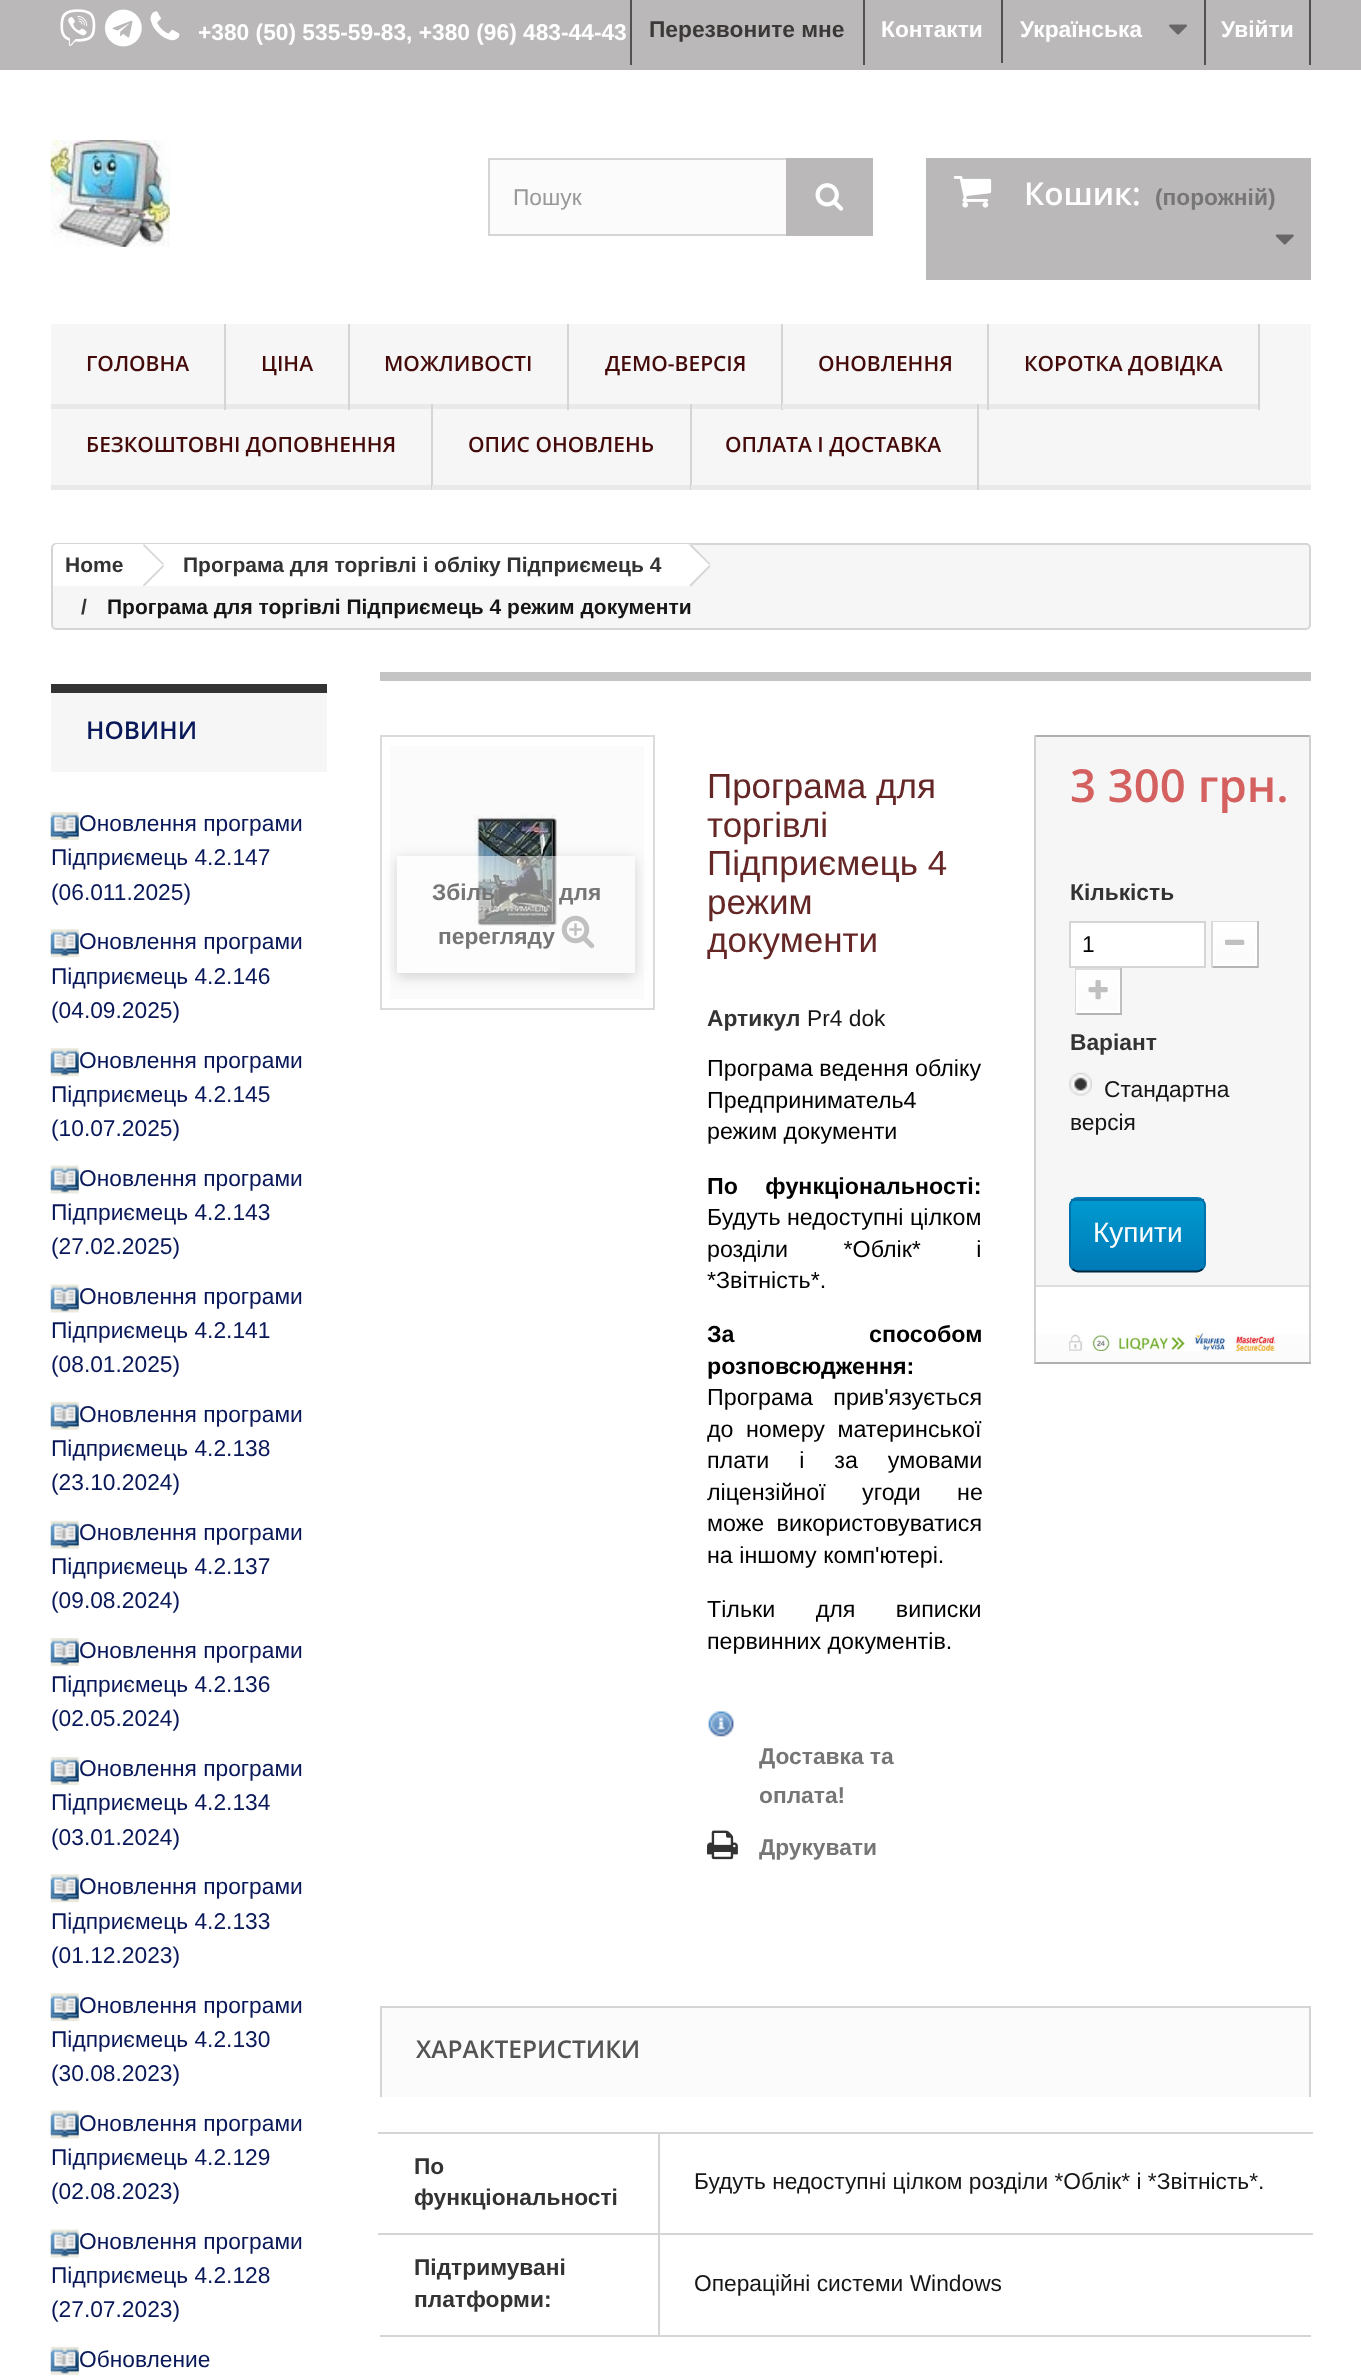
<svg xmlns="http://www.w3.org/2000/svg" xmlns:xlink="http://www.w3.org/1999/xlink" width="1361" height="2380" viewBox="0 0 1361 2380">
<style>
.cls-1{font:bold 22.75px Liberation Sans;fill:#ffffff}
.cls-2{font:bold 22.75px Liberation Sans;fill:#3c3838}
.cls-3{font:22.75px Liberation Sans;fill:#999999}
.cls-4{font:600 31.5px Open Sans;fill:#ffffff}
.cls-5{font:bold 22.75px Liberation Sans;fill:#777676}
.cls-6{font:600 21px Open Sans;fill:#440a0a}
.cls-7{font:bold 21px Liberation Sans;fill:#333333}
.cls-8{font:bold 21px Liberation Sans;fill:#171515}
.cls-9{font:600 24.5px Open Sans;fill:#091859}
.cls-10{font:22.75px Liberation Sans;fill:#091859}
.cls-11{font:35px Liberation Sans;fill:#652626}
.cls-12{font:bold 22.75px Liberation Sans;fill:#333333}
.cls-13{font:22.75px Liberation Sans;fill:#171515}
.cls-14{font:23.25px Liberation Sans;fill:#000000}
.cls-15{font:bold 23.25px Liberation Sans;fill:#000000}
.cls-16{font:600 45.5px Open Sans;fill:#d46060}
.cls-17{font:22.75px Liberation Sans;fill:#000000}
.cls-18{font:28px Liberation Sans;fill:#ffffff}
.cls-19{font:600 24.5px Open Sans;fill:#555454}
</style>
<defs>
<clipPath id="clip1"><path d="M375 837H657V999H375ZM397 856H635V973H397Z" clip-rule="evenodd"/></clipPath>
<linearGradient id="g1" gradientUnits="userSpaceOnUse" x1="1235" y1="924" x2="1235" y2="964"><stop offset="0" stop-color="#ffffff"/><stop offset="1" stop-color="#fbfbfb"/></linearGradient>
<linearGradient id="g2" gradientUnits="userSpaceOnUse" x1="1098" y1="971" x2="1098" y2="1012"><stop offset="0" stop-color="#ffffff"/><stop offset="1" stop-color="#fbfbfb"/></linearGradient>
<clipPath id="clip2"><rect x="1069" y="1197" width="137" height="75" rx="9"/></clipPath>
<linearGradient id="g3" gradientUnits="userSpaceOnUse" x1="1138" y1="1199" x2="1138" y2="1271"><stop offset="0" stop-color="#009ad0"/><stop offset="1" stop-color="#007ab7"/></linearGradient>
<linearGradient id="g4" gradientUnits="userSpaceOnUse" x1="1173" y1="1286" x2="1173" y2="1362"><stop offset="0" stop-color="#ffffff"/><stop offset="1" stop-color="#fbfbfb"/></linearGradient>
</defs>
<rect width="100%" height="100%" fill="#ffffff"/>
<rect fill="#bab8b8" x="0" y="0" width="1361" height="70"/>
<image xlink:href="image0.png" x="60" y="9" width="36" height="37"/>
<image xlink:href="image1.png" x="105" y="9" width="37" height="38"/>
<image xlink:href="image2.png" x="150" y="11" width="30" height="30"/>
<rect fill="#515151" x="630" y="0" width="2" height="65"/>
<rect fill="#515151" x="863" y="0" width="2" height="65"/>
<rect fill="#515151" x="1001" y="0" width="2" height="63"/>
<image xlink:href="image3.png" x="1169" y="24" width="18" height="11"/>
<rect fill="#515151" x="1309" y="0" width="2" height="65"/>
<rect fill="#515151" x="1204" y="0" width="2" height="65"/>
<image xlink:href="image4.png" x="50" y="140" width="120" height="107"/>
<rect fill="#fbfbfb" x="490" y="160" width="296" height="74"/>
<rect fill="none" stroke="#d6d4d4" stroke-width="2" x="489" y="159" width="383" height="76"/>
<rect fill="#bab8b8" x="786" y="158" width="87" height="78"/>
<image xlink:href="image5.png" x="815" y="183" width="29" height="28"/>
<rect fill="#bab8b8" x="926" y="158" width="385" height="122"/>
<image xlink:href="image6.png" x="953" y="176" width="39" height="32"/>
<image xlink:href="image7.png" x="1275" y="234" width="19" height="11"/>
<rect fill="#f6f6f6" x="51" y="324" width="1260" height="161"/>
<rect fill="#e9e9e9" x="51" y="485" width="1260" height="5"/>
<rect fill="#d6d4d4" x="224" y="324" width="2" height="86"/>
<rect fill="#e9e9e9" x="51" y="404" width="173" height="5"/>
<rect fill="#d6d4d4" x="348" y="324" width="2" height="86"/>
<rect fill="#e9e9e9" x="226" y="404" width="122" height="5"/>
<rect fill="#d6d4d4" x="567" y="324" width="2" height="86"/>
<rect fill="#e9e9e9" x="350" y="404" width="217" height="5"/>
<rect fill="#d6d4d4" x="781" y="324" width="2" height="86"/>
<rect fill="#e9e9e9" x="569" y="404" width="212" height="5"/>
<rect fill="#d6d4d4" x="987" y="324" width="2" height="86"/>
<rect fill="#e9e9e9" x="782" y="404" width="205" height="5"/>
<rect fill="#d6d4d4" x="1258" y="324" width="2" height="86"/>
<rect fill="#e9e9e9" x="989" y="404" width="269" height="5"/>
<rect fill="#d6d4d4" x="431" y="404" width="2" height="86"/>
<rect fill="#d6d4d4" x="690" y="404" width="2" height="86"/>
<rect fill="#e9e9e9" x="432" y="485" width="1" height="5"/>
<rect fill="#d6d4d4" x="977" y="404" width="2" height="86"/>
<rect fill="#e9e9e9" x="691" y="485" width="1" height="5"/>
<rect fill="#f6f6f6" stroke="#d6d4d4" stroke-width="2" x="52" y="544" width="1258" height="85" rx="4"/>
<path fill="#ffffff" d="M57 544H149V586H53V548C53 546 55 544 57 544Z"/>
<path fill="#ffffff" d="M154 545L171 563C172 564 172 566 171 568L154 585C152 586 150 586 149 585L131 568C130 566 130 564 131 563L149 545C150 544 152 544 154 545Z"/>
<rect fill="#ffffff" x="149" y="544" width="539" height="42"/>
<path fill="#d6d4d4" d="M144 544L164 564L163 565L143 545.5ZM163 565L164 566.5L144 586.5L143 585Z"/>
<path fill="#ffffff" d="M692 545L709 563C711 564 711 566 709 568L692 585C691 586 689 586 687 585L670 568C668 566 668 564 670 563L687 545C689 544 691 544 692 545Z"/>
<path fill="#d6d4d4" d="M691 544L710.5 564L709.5 565L689.5 545.5ZM709.5 565L710.5 566.5L691 586.5L689.5 585Z"/>
<rect fill="#f6f6f6" x="51" y="693" width="276" height="79"/>
<rect fill="#333333" x="51" y="684" width="276" height="9"/>
<image xlink:href="image8.png" x="50" y="812" width="29" height="28"/>
<image xlink:href="image9.png" x="50" y="929" width="29" height="29"/>
<image xlink:href="image9.png" x="50" y="1048" width="29" height="29"/>
<image xlink:href="image10.png" x="50" y="1165" width="29" height="29"/>
<image xlink:href="image10.png" x="50" y="1284" width="29" height="29"/>
<image xlink:href="image11.png" x="50" y="1401" width="29" height="29"/>
<image xlink:href="image11.png" x="50" y="1520" width="29" height="29"/>
<image xlink:href="image8.png" x="50" y="1638" width="29" height="28"/>
<image xlink:href="image8.png" x="50" y="1757" width="29" height="28"/>
<image xlink:href="image12.png" x="50" y="1874" width="29" height="29"/>
<image xlink:href="image13.png" x="50" y="1993" width="29" height="29"/>
<image xlink:href="image10.png" x="50" y="2110" width="29" height="29"/>
<image xlink:href="image10.png" x="50" y="2229" width="29" height="29"/>
<image xlink:href="image11.png" x="50" y="2346" width="29" height="29"/>
<rect fill="#c4c4c4" x="380" y="672" width="931" height="9"/>
<rect fill="none" stroke="#dbdbdb" stroke-width="2" x="381" y="736" width="273" height="273"/>
<rect fill="#fbfbfb" x="390" y="746" width="254" height="253"/>
<image xlink:href="image14.png" x="474" y="815" width="86" height="114"/>
<g clip-path="url(#clip1)">
<rect fill="#000000" fill-opacity="0.16" filter="blur(7px)" x="397" y="859" width="238" height="118"/>
</g>
<rect fill="#ffffff" fill-opacity="0.5" x="397" y="856" width="163" height="117"/>
<image xlink:href="image15.png" x="561" y="915" width="34" height="34"/>
<image xlink:href="image16.png" x="708" y="1711" width="26" height="26"/>
<image xlink:href="image17.png" x="707" y="1830" width="31" height="30"/>
<rect fill="#f6f6f6" x="1036" y="737" width="273" height="548"/>
<rect fill="#b0afaf" x="1034" y="735" width="277" height="2"/>
<rect fill="#d2d0d0" x="1309" y="735" width="2" height="628"/>
<rect fill="#b0afaf" x="1034" y="1362" width="277" height="2"/>
<rect fill="#d2d0d0" x="1034" y="735" width="2" height="628"/>
<rect fill="#ffffff" stroke="#d6d4d4" stroke-width="2" x="1070" y="922" width="135" height="45"/>
<rect fill="#dedcdc" x="1211" y="921" width="47" height="1"/>
<rect fill="#c1bfbf" x="1257" y="921" width="2" height="47"/>
<rect fill="#b5b4b4" x="1211" y="966" width="47" height="2"/>
<rect fill="#dad8d8" x="1211" y="921" width="2" height="47"/>
<rect fill="url(#g1)" x="1215" y="924" width="40" height="40"/>
<rect fill="none" stroke="#ffffff" stroke-width="2" x="1214" y="923" width="42" height="42"/>
<image xlink:href="image18.png" x="1225" y="939" width="20" height="6"/>
<rect fill="#dedcdc" x="1075" y="968" width="47" height="2"/>
<rect fill="#c1bfbf" x="1120" y="968" width="2" height="47"/>
<rect fill="#b5b4b4" x="1075" y="1013" width="47" height="2"/>
<rect fill="#dad8d8" x="1075" y="968" width="2" height="47"/>
<rect fill="url(#g2)" x="1078" y="972" width="40" height="39"/>
<rect fill="none" stroke="#ffffff" stroke-width="2" x="1077" y="971" width="42" height="41"/>
<image xlink:href="image19.png" x="1088" y="980" width="20" height="20"/>
<image xlink:href="image20.png" x="1069" y="1072" width="23" height="24"/>
<g clip-path="url(#clip2)">
<rect fill="url(#g3)" x="1069" y="1200" width="137" height="71"/>
</g>
<path fill="none" stroke="#0079b6" stroke-width="1.8" d="M1072.5 1200C1074 1198.5 1076 1198 1078 1198H1197C1199 1198 1201 1198.5 1202.5 1200"/>
<path fill="none" stroke="#006fa8" stroke-width="1.8" d="M1202.5 1200C1204 1201.5 1205 1203.5 1205 1206V1263.5C1205 1265.5 1204 1267.5 1202.5 1269"/>
<path fill="none" stroke="#012740" stroke-width="1.8" d="M1202.5 1269C1201 1270.5 1199 1271.5 1197 1271.5H1078C1076 1271.5 1074 1270.5 1072.5 1269"/>
<path fill="none" stroke="#006fa8" stroke-width="1.8" d="M1072.5 1269C1071 1267.5 1070 1265.5 1070 1263.5V1206C1070 1203.5 1071 1201.5 1072.5 1200"/>
<rect fill="#006fa8" x="1071" y="1199" width="133" height="2"/>
<rect fill="url(#g4)" x="1036" y="1334" width="273" height="28"/>
<rect fill="#dfdede" x="1036" y="1285" width="273" height="2"/>
<image xlink:href="image21.png" x="1069" y="1333" width="207" height="18"/>
<rect fill="#fbfbfb" x="382" y="2008" width="927" height="89"/>
<rect fill="#d6d4d4" x="380" y="2006" width="931" height="2"/>
<rect fill="#d6d4d4" x="1309" y="2006" width="2" height="91"/>
<rect fill="#d6d4d4" x="380" y="2006" width="2" height="91"/>
<rect fill="#d6d4d4" x="380" y="2335" width="931" height="2"/>
<rect fill="#d6d4d4" x="378" y="2132" width="935" height="2"/>
<rect fill="#d6d4d4" x="378" y="2233" width="935" height="2"/>
<rect fill="#d6d4d4" x="658" y="2132" width="2" height="204"/>
<text class="cls-1" x="198" y="40">+380 (50) 535-59-83, +380 (96) 483-44-43</text>
<text class="cls-2" x="649" y="37">Перезвоните мне</text>
<text class="cls-1" x="881" y="37">Контакти</text>
<text class="cls-1" x="1020" y="37">Українська</text>
<text class="cls-1" x="1221" y="37">Увійти</text>
<text class="cls-3" x="513" y="205">Пошук</text>
<text class="cls-4" x="1024" y="205">Кошик:</text>
<text class="cls-5" x="1155" y="205">(порожній)</text>
<text class="cls-6" x="86" y="371">ГОЛОВНА</text>
<text class="cls-6" x="261" y="371">ЦІНА</text>
<text class="cls-6" x="384" y="371">МОЖЛИВОСТІ</text>
<text class="cls-6" x="605" y="371">ДЕМО-ВЕРСІЯ</text>
<text class="cls-6" x="818" y="371">ОНОВЛЕННЯ</text>
<text class="cls-6" x="1024" y="371">КОРОТКА ДОВІДКА</text>
<text class="cls-6" x="86" y="452">БЕЗКОШТОВНІ ДОПОВНЕННЯ</text>
<text class="cls-6" x="468" y="452">ОПИС ОНОВЛЕНЬ</text>
<text class="cls-6" x="725" y="452">ОПЛАТА І ДОСТАВКА</text>
<text class="cls-7" x="65" y="572">Home</text>
<text class="cls-7" x="183" y="572">Програма для торгівлі і обліку Підприємець 4</text>
<text class="cls-7" x="81" y="614">/</text>
<text class="cls-8" x="107" y="614">Програма для торгівлі Підприємець 4 режим документи</text>
<text class="cls-9" x="86" y="739">НОВИНИ</text>
<text class="cls-10" x="79" y="831">Оновлення програми</text>
<text class="cls-10"><tspan x="51" y="865">Підприємець 4.2.147</tspan><tspan x="51" y="900">(06.011.2025)</tspan></text>
<text class="cls-10" x="79" y="949">Оновлення програми</text>
<text class="cls-10"><tspan x="51" y="984">Підприємець 4.2.146</tspan><tspan x="51" y="1018">(04.09.2025)</tspan></text>
<text class="cls-10" x="79" y="1068">Оновлення програми</text>
<text class="cls-10"><tspan x="51" y="1102">Підприємець 4.2.145</tspan><tspan x="51" y="1136">(10.07.2025)</tspan></text>
<text class="cls-10" x="79" y="1186">Оновлення програми</text>
<text class="cls-10"><tspan x="51" y="1220">Підприємець 4.2.143</tspan><tspan x="51" y="1254">(27.02.2025)</tspan></text>
<text class="cls-10" x="79" y="1304">Оновлення програми</text>
<text class="cls-10"><tspan x="51" y="1338">Підприємець 4.2.141</tspan><tspan x="51" y="1372">(08.01.2025)</tspan></text>
<text class="cls-10" x="79" y="1422">Оновлення програми</text>
<text class="cls-10"><tspan x="51" y="1456">Підприємець 4.2.138</tspan><tspan x="51" y="1490">(23.10.2024)</tspan></text>
<text class="cls-10" x="79" y="1540">Оновлення програми</text>
<text class="cls-10"><tspan x="51" y="1574">Підприємець 4.2.137</tspan><tspan x="51" y="1608">(09.08.2024)</tspan></text>
<text class="cls-10" x="79" y="1658">Оновлення програми</text>
<text class="cls-10"><tspan x="51" y="1692">Підприємець 4.2.136</tspan><tspan x="51" y="1726">(02.05.2024)</tspan></text>
<text class="cls-10" x="79" y="1776">Оновлення програми</text>
<text class="cls-10"><tspan x="51" y="1810">Підприємець 4.2.134</tspan><tspan x="51" y="1845">(03.01.2024)</tspan></text>
<text class="cls-10" x="79" y="1894">Оновлення програми</text>
<text class="cls-10"><tspan x="51" y="1929">Підприємець 4.2.133</tspan><tspan x="51" y="1963">(01.12.2023)</tspan></text>
<text class="cls-10" x="79" y="2013">Оновлення програми</text>
<text class="cls-10"><tspan x="51" y="2047">Підприємець 4.2.130</tspan><tspan x="51" y="2081">(30.08.2023)</tspan></text>
<text class="cls-10" x="79" y="2131">Оновлення програми</text>
<text class="cls-10"><tspan x="51" y="2165">Підприємець 4.2.129</tspan><tspan x="51" y="2199">(02.08.2023)</tspan></text>
<text class="cls-10" x="79" y="2249">Оновлення програми</text>
<text class="cls-10"><tspan x="51" y="2283">Підприємець 4.2.128</tspan><tspan x="51" y="2317">(27.07.2023)</tspan></text>
<text class="cls-10" x="79" y="2367">Обновление</text>
<text class="cls-5" x="432" y="900">Збіль</text>
<text class="cls-5" x="559" y="900">для</text>
<text class="cls-5" x="438" y="944">перегляду</text>
<text class="cls-11"><tspan x="707" y="798">Програма для</tspan><tspan x="707" y="837">торгівлі</tspan><tspan x="707" y="875">Підприємець 4</tspan><tspan x="707" y="914">режим</tspan><tspan x="707" y="952">документи</tspan></text>
<text class="cls-12" x="707" y="1026">Артикул</text>
<text class="cls-13" x="807" y="1026">Pr4 dok</text>
<text class="cls-14"><tspan x="707" y="1076">Програма ведення обліку</tspan><tspan x="707" y="1108">Предприниматель4</tspan><tspan x="707" y="1139">режим документи</tspan></text>
<text class="cls-15" x="707" y="1194" word-spacing="21">По функціональності:</text>
<text class="cls-14"><tspan x="707" y="1225">Будуть недоступні цілком</tspan><tspan x="707" y="1257" word-spacing="49">розділи *Облік* і</tspan><tspan x="707" y="1288">*Звітність*.</tspan></text>
<text class="cls-15"><tspan x="707" y="1342" word-spacing="128">За способом</tspan><tspan x="707" y="1374">розповсюдження:</tspan></text>
<text class="cls-14"><tspan x="707" y="1405" word-spacing="14">Програма прив'язується</tspan><tspan x="707" y="1437" word-spacing="6">до номеру материнської</tspan><tspan x="707" y="1468" word-spacing="23.5">плати і за умовами</tspan><tspan x="707" y="1500" word-spacing="30">ліцензійної угоди не</tspan><tspan x="707" y="1531" word-spacing="6">може використовуватися</tspan><tspan x="707" y="1563">на іншому комп'ютері.</tspan></text>
<text class="cls-14"><tspan x="707" y="1617" word-spacing="34">Тільки для виписки</tspan><tspan x="707" y="1649">первинних документів.</tspan></text>
<text class="cls-5"><tspan x="759" y="1764">Доставка та</tspan><tspan x="759" y="1803">оплата!</tspan></text>
<text class="cls-5" x="759" y="1855">Друкувати</text>
<text class="cls-16" x="1070" y="802">3 300 грн.</text>
<text class="cls-12" x="1070" y="900">Кількість</text>
<text class="cls-17" x="1082" y="952">1</text>
<text class="cls-12" x="1070" y="1050">Варіант</text>
<text class="cls-13" x="1104" y="1097">Стандартна</text>
<text class="cls-13" x="1070" y="1130">версія</text>
<text class="cls-18" x="1093" y="1242">Купити</text>
<text class="cls-19" x="416" y="2058">ХАРАКТЕРИСТИКИ</text>
<text class="cls-12"><tspan x="414" y="2174">По</tspan><tspan x="414" y="2205">функціональності</tspan></text>
<text class="cls-13" x="694" y="2189">Будуть недоступні цілком розділи *Облік* і *Звітність*.</text>
<text class="cls-12"><tspan x="414" y="2275">Підтримувані</tspan><tspan x="414" y="2307">платформи:</tspan></text>
<text class="cls-13" x="694" y="2291">Операційні системи Windows</text>
</svg>
